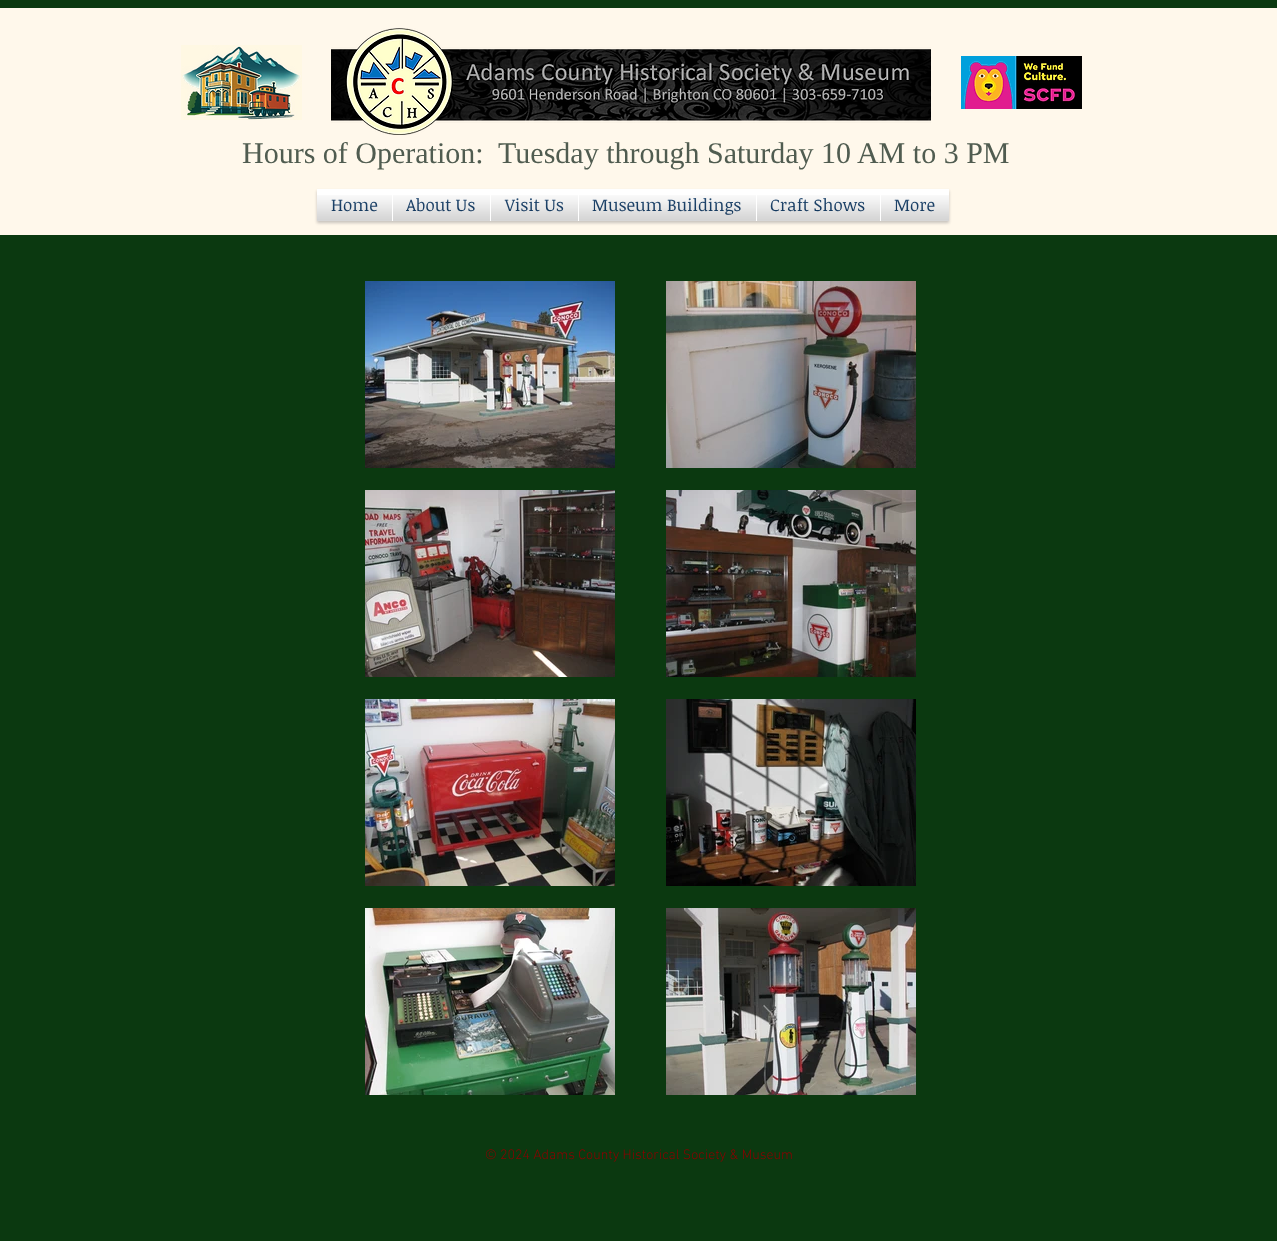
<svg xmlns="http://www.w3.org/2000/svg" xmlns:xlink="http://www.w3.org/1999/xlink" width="1277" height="1241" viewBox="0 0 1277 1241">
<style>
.cls-1{font:30px Liberation Serif;fill:#505c50}
.cls-2{font:17px Noticia Text;fill:#002e5d}
.cls-3{font:300 14px 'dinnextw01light';fill:#8b0000}
</style>
<rect width="100%" height="100%" fill="#0b3910"/>
<rect fill="#fff8eb" x="0" y="8" width="1277" height="227"/>
<image xlink:href="image0.png" x="181" y="45" width="121" height="75"/>
<image xlink:href="image1.png" x="331" y="28" width="600" height="107"/>
<image xlink:href="image2.png" x="961" y="56" width="121" height="53"/>
<rect fill="#a29e9e" fill-opacity="0.6" filter="blur(1.5px)" x="317" y="191" width="632" height="32"/>
<rect fill="#ffffff" x="317" y="189" width="632" height="32"/>
<image xlink:href="image15.png" x="365" y="281" width="250" height="187"/>
<image xlink:href="image16.png" x="666" y="281" width="250" height="187"/>
<image xlink:href="image17.png" x="365" y="490" width="250" height="187"/>
<image xlink:href="image18.png" x="666" y="490" width="250" height="187"/>
<image xlink:href="image19.png" x="365" y="699" width="250" height="187"/>
<image xlink:href="image20.png" x="666" y="699" width="250" height="187"/>
<image xlink:href="image21.png" x="365" y="908" width="250" height="187"/>
<image xlink:href="image22.png" x="666" y="908" width="250" height="187"/>
<text class="cls-1" xml:space="preserve" x="242" y="163">Hours of Operation:  Tuesday through Saturday 10 AM to 3 PM</text>
<text class="cls-2" x="331" y="211">Home</text>
<image xlink:href="image3.png" x="331" y="199" width="46" height="12"/>
<image xlink:href="image4.png" x="317" y="195" width="75" height="26"/>
<text class="cls-2" x="406" y="211">About Us</text>
<image xlink:href="image5.png" x="406" y="198" width="69" height="13"/>
<image xlink:href="image6.png" x="393" y="195" width="97" height="26"/>
<text class="cls-2" x="505" y="211">Visit Us</text>
<image xlink:href="image7.png" x="504" y="198" width="59" height="13"/>
<image xlink:href="image8.png" x="491" y="195" width="87" height="26"/>
<text class="cls-2" x="592" y="211">Museum Buildings</text>
<image xlink:href="image9.png" x="593" y="198" width="148" height="17"/>
<image xlink:href="image10.png" x="579" y="195" width="177" height="26"/>
<text class="cls-2" x="770" y="211">Craft Shows</text>
<image xlink:href="image11.png" x="771" y="198" width="94" height="13"/>
<image xlink:href="image12.png" x="757" y="195" width="123" height="26"/>
<text class="cls-2" x="894" y="211">More</text>
<image xlink:href="image13.png" x="894" y="199" width="41" height="12"/>
<image xlink:href="image14.png" x="881" y="195" width="68" height="26"/>
<text class="cls-3" x="485" y="1159">© 2024 Adams County Historical Society &amp; Museum</text>
</svg>
